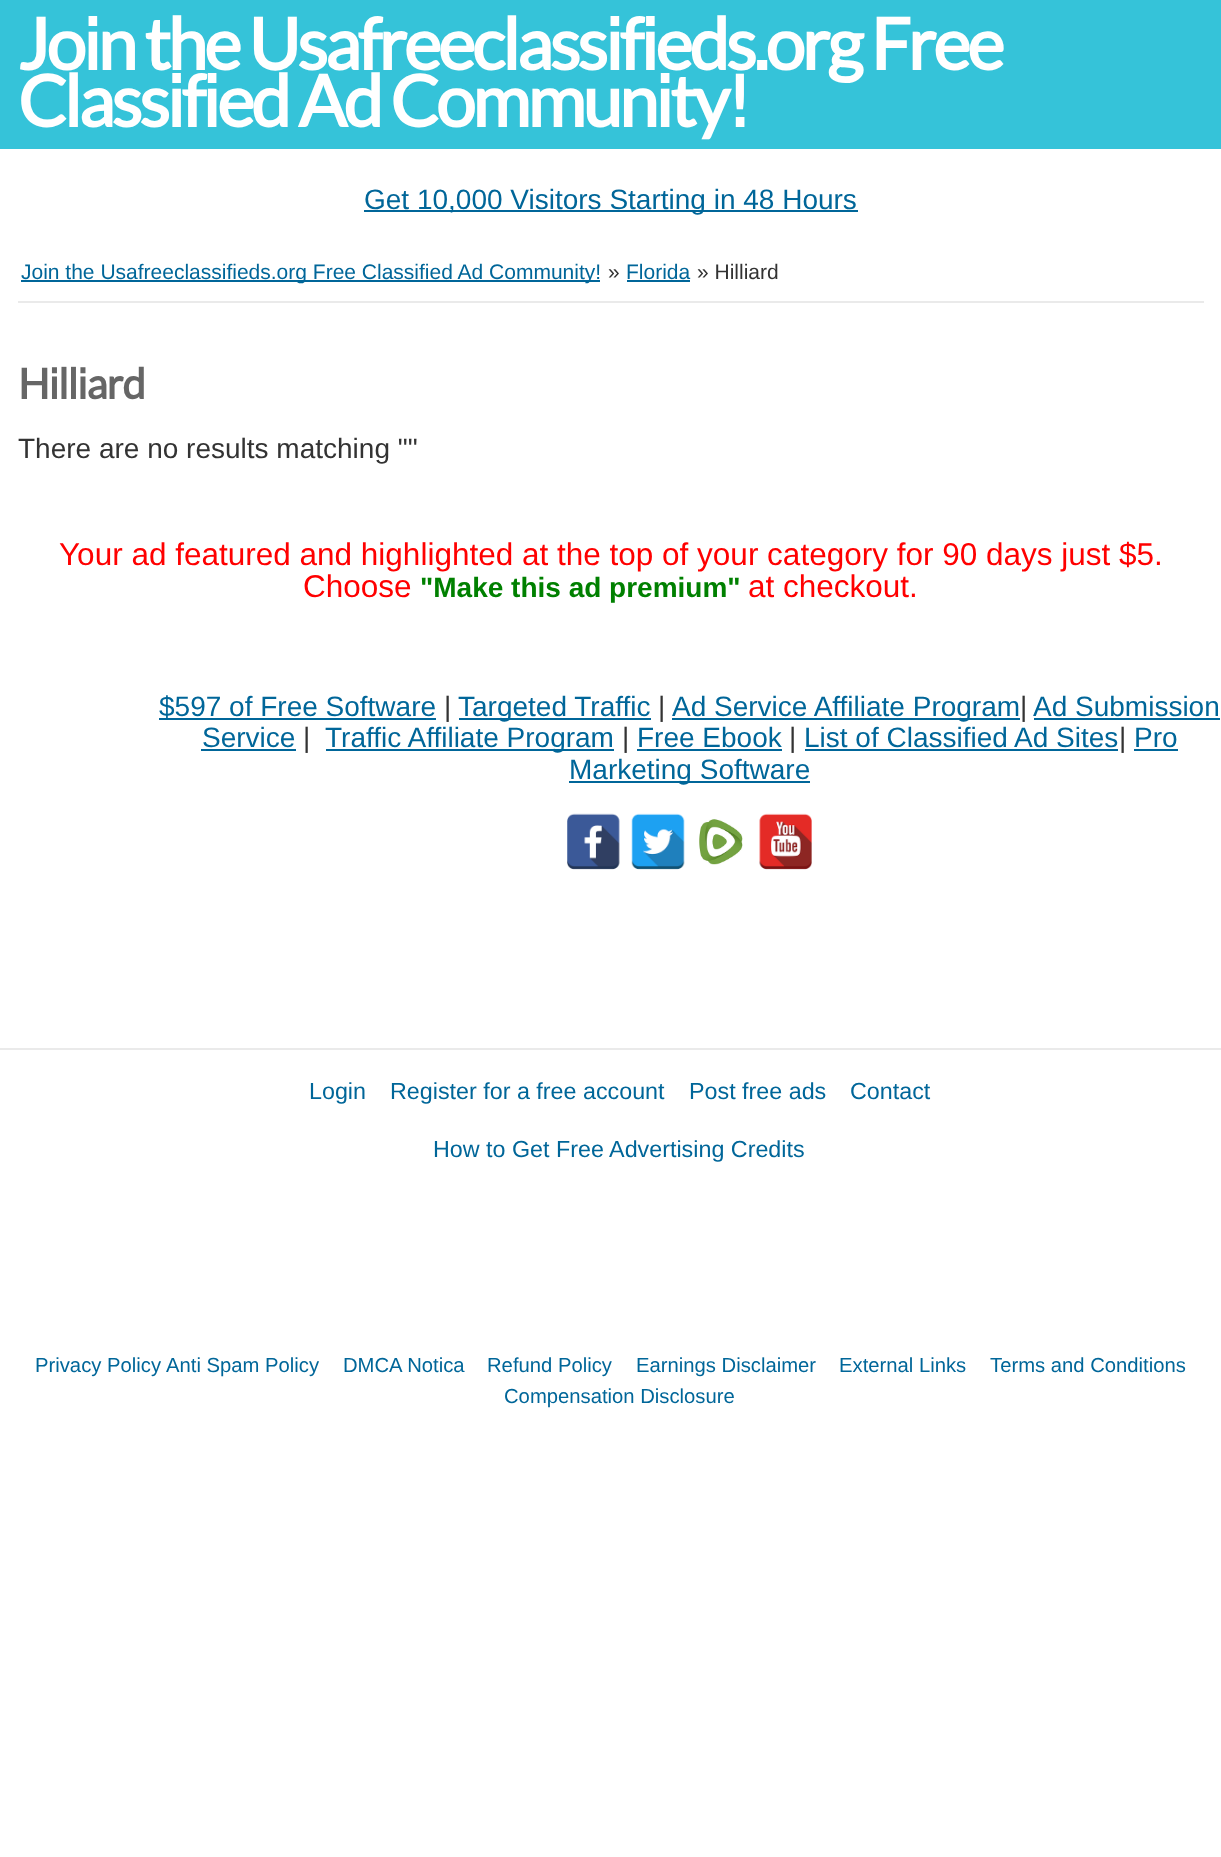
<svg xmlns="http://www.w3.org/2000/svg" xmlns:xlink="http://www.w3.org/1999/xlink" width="1221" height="1857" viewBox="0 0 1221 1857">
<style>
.cls-1{font:bold 71.4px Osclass;letter-spacing:-3.35px;fill:#ffffff}
.cls-2{font:28px Liberation Sans;fill:#006699}
.cls-3{font:21px Liberation Sans;fill:#006699}
.cls-4{font:21px Liberation Sans;fill:#333333}
.cls-5{font:bold 42px Osclass;letter-spacing:-1.25px;fill:#666666}
.cls-6{font:28px Liberation Sans;fill:#333333}
.cls-7{font:31.5px Liberation Sans;fill:#ff0000}
.cls-8{font:bold 28px Liberation Sans;fill:#008000}
.cls-9{font:23.3px Liberation Sans;fill:#006699}
.cls-10{font:20.25px Liberation Sans;fill:#006699}
</style>
<rect width="100%" height="100%" fill="#ffffff"/>
<rect fill="#35c3d9" x="0" y="0" width="1221" height="149"/>
<rect fill="#006699" x="364" y="210" width="494" height="2"/>
<rect fill="#eaeaea" x="18" y="301" width="1186" height="2"/>
<rect fill="#006699" x="21" y="280" width="579" height="2"/>
<rect fill="#006699" x="627" y="280" width="63" height="2"/>
<rect fill="#006699" x="159" y="718" width="277" height="2"/>
<rect fill="#006699" x="459" y="718" width="192" height="2"/>
<rect fill="#006699" x="672" y="718" width="348" height="2"/>
<rect fill="#006699" x="1034" y="718" width="186" height="2"/>
<rect fill="#006699" x="201" y="749" width="95" height="2"/>
<rect fill="#006699" x="326" y="749" width="288" height="2"/>
<rect fill="#006699" x="637" y="749" width="145" height="2"/>
<rect fill="#006699" x="805" y="749" width="313" height="2"/>
<rect fill="#006699" x="1134" y="749" width="44" height="2"/>
<rect fill="#006699" x="569" y="781" width="241" height="2"/>
<image xlink:href="image0.png" x="567" y="813" width="53" height="57"/>
<image xlink:href="image1.png" x="631" y="813" width="54" height="57"/>
<image xlink:href="image2.png" x="699" y="819" width="44" height="46"/>
<image xlink:href="image3.png" x="759" y="813" width="53" height="57"/>
<rect fill="#eaeaea" x="0" y="1048" width="1221" height="2"/>
<text class="cls-1"><tspan x="18" y="70">Join the Usafreeclassifieds.org Free</tspan><tspan x="18" y="127">Classified Ad Community!</tspan></text>
<text class="cls-2" x="364" y="209">Get 10,000 Visitors Starting in 48 Hours</text>
<text class="cls-3" x="21" y="279">Join the Usafreeclassifieds.org Free Classified Ad Community!</text>
<text class="cls-4" x="608" y="279">»</text>
<text class="cls-3" x="626" y="279">Florida</text>
<text class="cls-4" x="697" y="279">» Hilliard</text>
<text class="cls-5" x="18" y="399">Hilliard</text>
<text class="cls-6" x="18" y="458">There are no results matching ""</text>
<text class="cls-7" x="59" y="565">Your ad featured and highlighted at the top of your category for 90 days just $5.</text>
<text class="cls-7" x="303" y="597">Choose</text>
<text class="cls-8" x="420" y="597">"Make this ad premium"</text>
<text class="cls-7" x="748" y="597">at checkout.</text>
<text class="cls-2" x="159" y="716">$597 of Free Software</text>
<text class="cls-6" x="444" y="716">|</text>
<text class="cls-2" x="458" y="716">Targeted Traffic</text>
<text class="cls-6" x="658" y="716">|</text>
<text class="cls-2" x="672" y="716">Ad Service Affiliate Program</text>
<text class="cls-6" x="1020" y="716">|</text>
<text class="cls-2" x="1033" y="716">Ad Submission</text>
<text class="cls-2" x="202" y="747">Service</text>
<text class="cls-6" x="303" y="747">|</text>
<text class="cls-2" x="325" y="747">Traffic Affiliate Program</text>
<text class="cls-6" x="622" y="747">|</text>
<text class="cls-2" x="637" y="747">Free Ebook</text>
<text class="cls-6" x="789" y="747">|</text>
<text class="cls-2" x="804" y="747">List of Classified Ad Sites</text>
<text class="cls-6" x="1119" y="747">|</text>
<text class="cls-2" x="1134" y="747">Pro</text>
<text class="cls-2" x="569" y="779">Marketing Software</text>
<text class="cls-9" x="309" y="1099">Login</text>
<text class="cls-9" x="390" y="1099">Register for a free account</text>
<text class="cls-9" x="689" y="1099">Post free ads</text>
<text class="cls-9" x="850" y="1099">Contact</text>
<text class="cls-9" x="433" y="1157">How to Get Free Advertising Credits</text>
<text class="cls-10" x="35" y="1372">Privacy Policy</text>
<text class="cls-10" x="166" y="1372">Anti Spam Policy</text>
<text class="cls-10" x="343" y="1372">DMCA Notica</text>
<text class="cls-10" x="487" y="1372">Refund Policy</text>
<text class="cls-10" x="636" y="1372">Earnings Disclaimer</text>
<text class="cls-10" x="839" y="1372">External Links</text>
<text class="cls-10" x="990" y="1372">Terms and Conditions</text>
<text class="cls-10" x="504" y="1403">Compensation Disclosure</text>
</svg>
